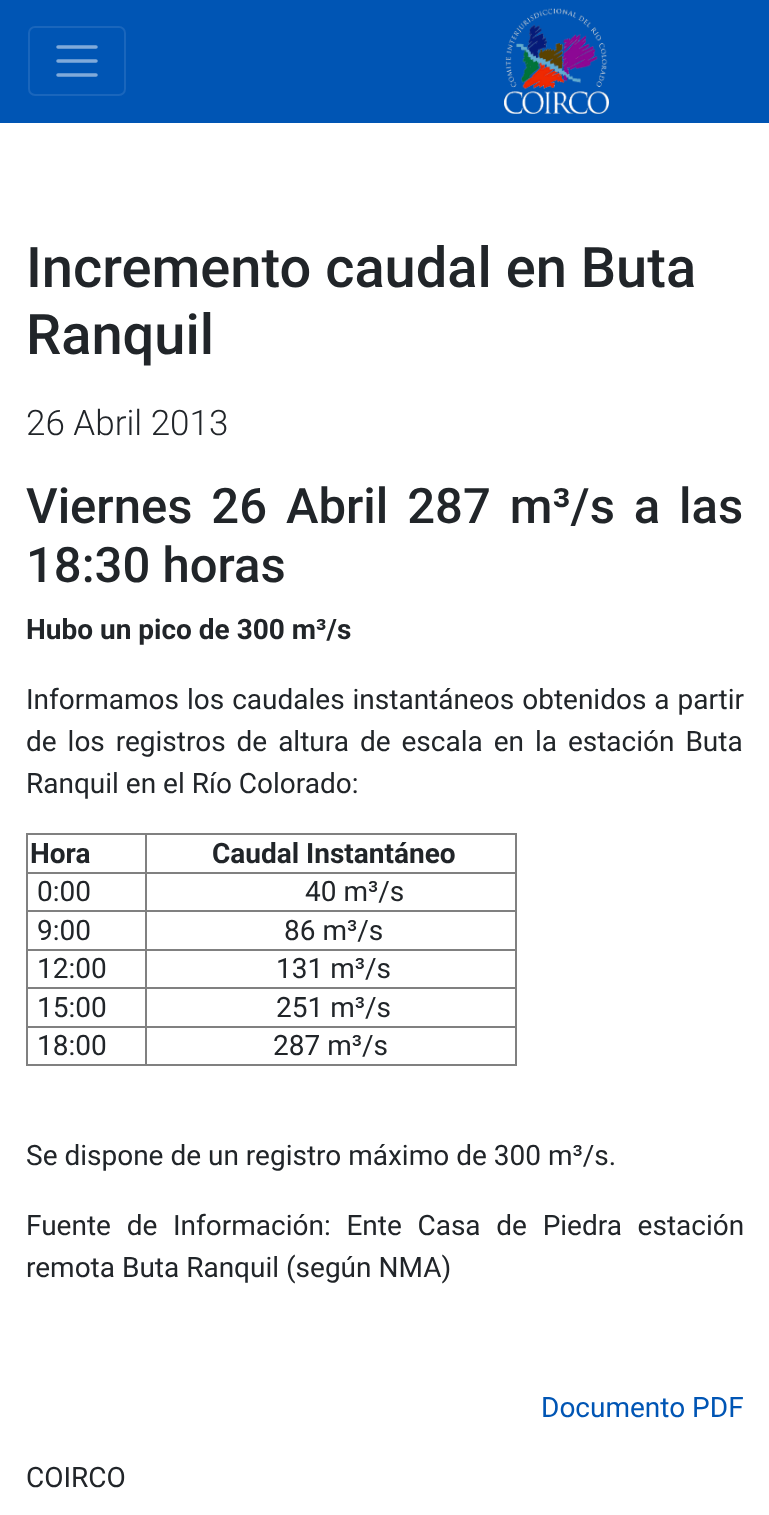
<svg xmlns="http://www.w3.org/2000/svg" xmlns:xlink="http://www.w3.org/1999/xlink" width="769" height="1515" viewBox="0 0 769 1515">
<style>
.cls-1{font:500 56px Roboto;fill:#212529}
.cls-2{font:300 35px Roboto;fill:#212529}
.cls-3{font:500 49px Roboto;fill:#212529}
.cls-4{font:bold 28px Roboto;fill:#212529}
.cls-5{font:28px Roboto;fill:#212529}
.cls-6{font:28px Roboto;fill:#0055b4}
</style>
<rect width="100%" height="100%" fill="#ffffff"/>
<rect fill="#0055b4" x="0" y="0" width="769" height="123"/>
<rect fill="none" stroke="#1a66bc" stroke-width="2" x="29" y="27" width="96" height="68" rx="6"/>
<path fill="none" stroke="#80aada" stroke-width="3.5" stroke-linecap="round" d="M58 47H96M58 61H96M58 75H96"/>
<image xlink:href="image0.png" x="504" y="8" width="105" height="106"/>
<rect fill="#808080" x="26" y="833" width="490" height="2"/>
<rect fill="#808080" x="515" y="833" width="2" height="233"/>
<rect fill="#808080" x="26" y="1064" width="490" height="2"/>
<rect fill="#808080" x="26" y="833" width="2" height="233"/>
<rect fill="#808080" x="145" y="872" width="371" height="2"/>
<rect fill="#808080" x="145" y="910" width="371" height="2"/>
<rect fill="#808080" x="145" y="949" width="371" height="2"/>
<rect fill="#808080" x="145" y="987" width="371" height="2"/>
<rect fill="#808080" x="145" y="1026" width="371" height="2"/>
<rect fill="#808080" x="145" y="1026" width="2" height="40"/>
<rect fill="#808080" x="26" y="1026" width="121" height="2"/>
<rect fill="#808080" x="145" y="987" width="2" height="40"/>
<rect fill="#808080" x="26" y="987" width="121" height="2"/>
<rect fill="#808080" x="145" y="949" width="2" height="40"/>
<rect fill="#808080" x="26" y="949" width="121" height="2"/>
<rect fill="#808080" x="145" y="910" width="2" height="40"/>
<rect fill="#808080" x="26" y="910" width="121" height="2"/>
<rect fill="#808080" x="145" y="872" width="2" height="40"/>
<rect fill="#808080" x="26" y="872" width="121" height="2"/>
<rect fill="#808080" x="145" y="833" width="2" height="40"/>
<text class="cls-1"><tspan x="26" y="287">Incremento caudal en Buta</tspan><tspan x="26" y="354">Ranquil</tspan></text>
<text class="cls-2" x="26" y="435">26 Abril 2013</text>
<text class="cls-3"><tspan x="26" y="523" word-spacing="6.75">Viernes 26 Abril 287 m³/s a las</tspan><tspan x="26" y="582">18:30 horas</tspan></text>
<text class="cls-4" x="26" y="639">Hubo un pico de 300 m³/s</text>
<text class="cls-5"><tspan x="26" y="709" word-spacing="1">Informamos los caudales instantáneos obtenidos a partir</tspan><tspan x="26" y="751" word-spacing="4">de los registros de altura de escala en la estación Buta</tspan><tspan x="26" y="793">Ranquil en el Río Colorado:</tspan></text>
<text class="cls-4" x="30" y="863">Hora</text>
<text class="cls-4" x="212" y="863">Caudal Instantáneo</text>
<text class="cls-5" x="37" y="901">0:00</text>
<text class="cls-5" x="305" y="901">40 m³/s</text>
<text class="cls-5" x="37" y="940">9:00</text>
<text class="cls-5" x="284" y="940">86 m³/s</text>
<text class="cls-5" x="37" y="978">12:00</text>
<text class="cls-5" x="276" y="978">131 m³/s</text>
<text class="cls-5" x="37" y="1017">15:00</text>
<text class="cls-5" x="276" y="1017">251 m³/s</text>
<text class="cls-5" x="37" y="1055">18:00</text>
<text class="cls-5" x="273" y="1055">287 m³/s</text>
<text class="cls-5" x="26" y="1165">Se dispone de un registro máximo de 300 m³/s.</text>
<text class="cls-5"><tspan x="26" y="1235" word-spacing="8.75">Fuente de Información: Ente Casa de Piedra estación</tspan><tspan x="26" y="1277">remota Buta Ranquil (según NMA)</tspan></text>
<text class="cls-6" x="541" y="1417">Documento PDF</text>
<text class="cls-5" x="26" y="1487">COIRCO</text>
</svg>
